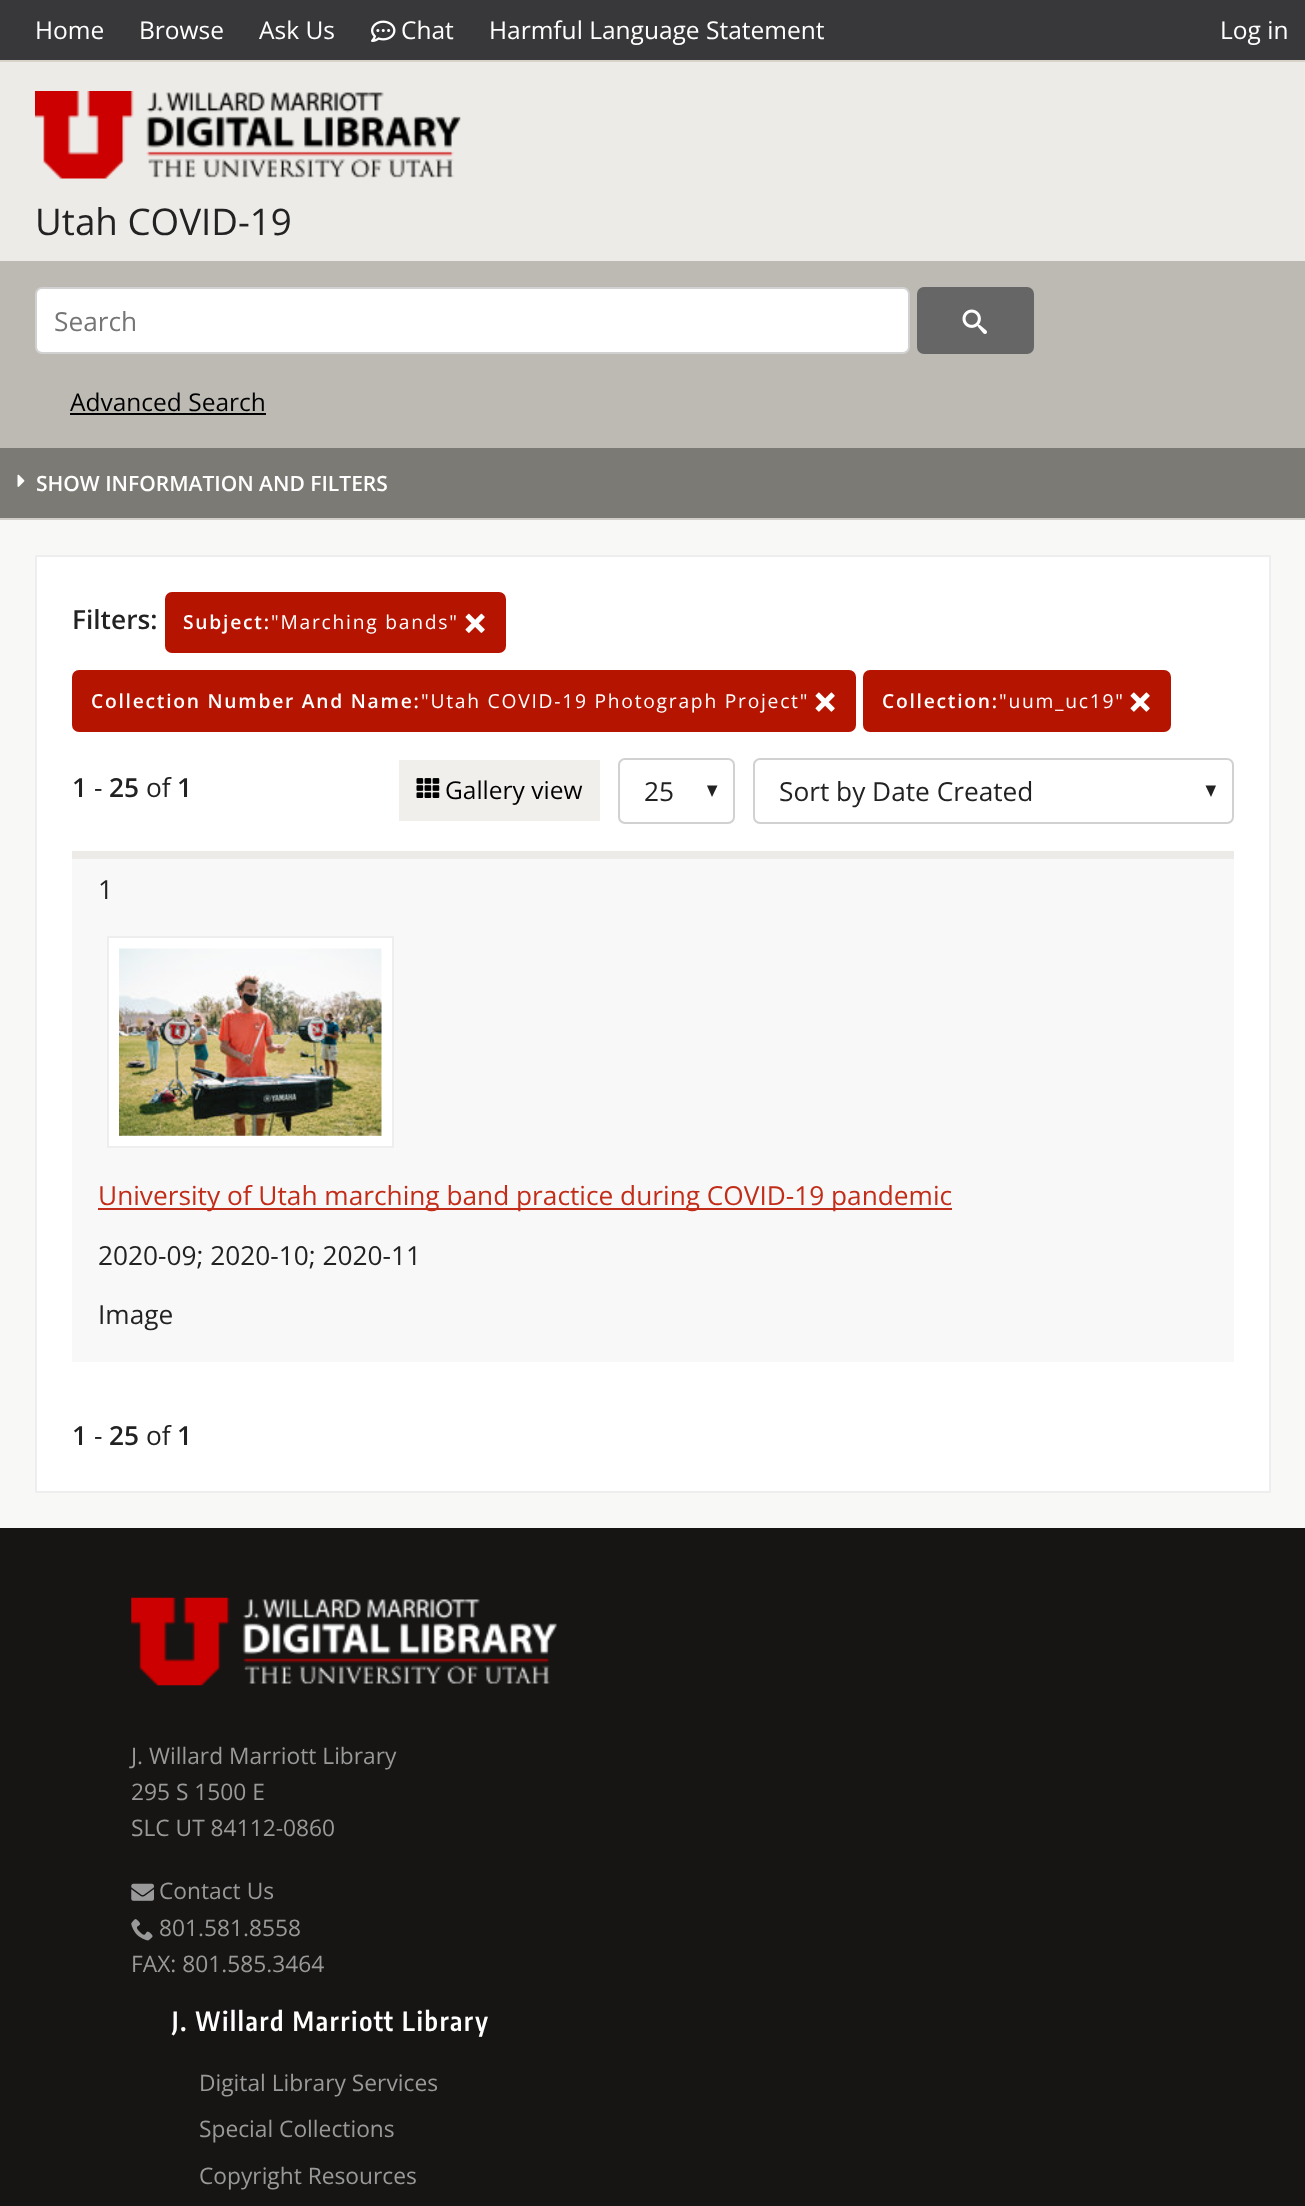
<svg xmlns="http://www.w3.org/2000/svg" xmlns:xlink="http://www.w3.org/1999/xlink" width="1305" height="2206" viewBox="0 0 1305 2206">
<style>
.cls-1{font:24.5px Open Sans;fill:#ffffff}
.cls-2{font:36.75px Open Sans;fill:#222222}
.cls-3{font:26.25px Open Sans;fill:#757575}
.cls-4{font:24.5px Open Sans;fill:#000000}
.cls-5{font:600 21px Open Sans;fill:#ffffff}
.cls-6{font:600 26.25px Open Sans;fill:#222222}
.cls-7{font:600 19.25px Open Sans;letter-spacing:1.75px;fill:#ffffff}
.cls-8{font:19.25px Open Sans;letter-spacing:1.75px;fill:#ffffff}
.cls-9{font:26.25px Open Sans;fill:#222222}
.cls-10{font:26.25px Open Sans;fill:#c22d19}
.cls-11{font:22.75px Open Sans;fill:#999999}
.cls-12{font:600 26.25px Encode Sans Condensed;letter-spacing:1.75px;fill:#ffffff}
</style>
<rect width="100%" height="100%" fill="#f8f8f7"/>
<rect fill="#383739" x="0" y="0" width="1305" height="60"/>
<image xlink:href="image0.png" x="371" y="20" width="25" height="22"/>
<rect fill="#edebe7" x="0" y="62" width="1305" height="199"/>
<rect fill="#d8d2c9" x="0" y="60" width="1305" height="2"/>
<image xlink:href="image1.png" x="35" y="91" width="426" height="88"/>
<rect fill="#bdbab4" x="0" y="261" width="1305" height="187"/>
<rect fill="#ffffff" stroke="#d1d1d1" stroke-width="2" x="36" y="288" width="873" height="65" rx="6"/>
<rect fill="#666666" stroke="#666666" stroke-width="2" x="918" y="288" width="115" height="65" rx="6"/>
<image xlink:href="image2.png" x="962" y="309" width="25" height="25"/>
<rect fill="#000000" x="70" y="413" width="196" height="2"/>
<rect fill="#7c7a74" x="0" y="448" width="1305" height="70"/>
<rect fill="#d0cdc8" x="0" y="518" width="1305" height="2"/>
<image xlink:href="image3.png" x="17" y="474" width="8" height="13"/>
<rect fill="#ffffff" stroke="#eeeeee" stroke-width="2" x="36" y="556" width="1234" height="936"/>
<rect fill="#b51500" stroke="#b51500" stroke-width="2" x="166" y="593" width="339" height="59" rx="6"/>
<image xlink:href="image4.png" x="465" y="613" width="20" height="20"/>
<rect fill="#b51500" stroke="#b51500" stroke-width="2" x="73" y="671" width="782" height="60" rx="6"/>
<image xlink:href="image5.png" x="815" y="692" width="20" height="20"/>
<rect fill="#b51500" stroke="#b51500" stroke-width="2" x="864" y="671" width="306" height="60" rx="6"/>
<image xlink:href="image5.png" x="1130" y="692" width="20" height="20"/>
<rect fill="#edebe7" x="72" y="851" width="1162" height="8"/>
<rect fill="#f0efec" x="399" y="760" width="201" height="61"/>
<image xlink:href="image6.png" x="416" y="778" width="24" height="20"/>
<path fill="#222222" d="M707 785.5L712 797L717.5 785.5"/>
<rect fill="none" stroke="#d1d1d1" stroke-width="2" x="619" y="759" width="115" height="64" rx="6"/>
<path fill="#222222" d="M1205.5 785.5L1211 797L1216 785.5"/>
<rect fill="none" stroke="#d1d1d1" stroke-width="2" x="754" y="759" width="479" height="64" rx="6"/>
<rect fill="#f8f8f8" x="72" y="859" width="1162" height="503"/>
<rect fill="#ffffff" stroke="#eeeeee" stroke-width="2" x="108" y="937" width="285" height="210"/>
<image xlink:href="image7.png" x="119" y="948" width="263" height="188"/>
<rect fill="#c22d19" x="98" y="1208" width="854" height="2"/>
<rect fill="#161514" x="0" y="1528" width="1305" height="678"/>
<image xlink:href="image8.png" x="131" y="1597" width="426" height="89"/>
<image xlink:href="image9.png" x="131" y="1883" width="23" height="18"/>
<image xlink:href="image10.png" x="131" y="1919" width="22" height="22"/>
<text class="cls-1" x="35" y="39">Home</text>
<text class="cls-1" x="139" y="39">Browse</text>
<text class="cls-1" x="259" y="39">Ask Us</text>
<text class="cls-1" x="401" y="39">Chat</text>
<text class="cls-1" x="489" y="39">Harmful Language Statement</text>
<text class="cls-1" x="1220" y="39">Log in</text>
<text class="cls-2" x="35" y="235">Utah COVID-19</text>
<text class="cls-3" x="54" y="331">Search</text>
<text class="cls-4" x="70" y="411">Advanced Search</text>
<text class="cls-5" x="36" y="491">SHOW INFORMATION AND FILTERS</text>
<text class="cls-6" x="72" y="629">Filters:</text>
<text class="cls-7" x="183" y="629">Subject:</text>
<text class="cls-8" x="271" y="629">"Marching bands"</text>
<text class="cls-7" x="91" y="708">Collection Number And Name:</text>
<text class="cls-8" x="421" y="708">"Utah COVID-19 Photograph Project"</text>
<text class="cls-7" x="882" y="708">Collection:</text>
<text class="cls-8" x="999" y="708">"uum_uc19"</text>
<text class="cls-6" x="72" y="797">1</text>
<text class="cls-9" x="94" y="797">-</text>
<text class="cls-6" x="109" y="797">25</text>
<text class="cls-9" x="146" y="797">of</text>
<text class="cls-6" x="177" y="797">1</text>
<text class="cls-4" x="445" y="799">Gallery view</text>
<text class="cls-9" x="644" y="801">25</text>
<text class="cls-9" x="779" y="801">Sort by Date Created</text>
<text class="cls-9" x="98" y="899">1</text>
<text class="cls-10" x="98" y="1205">University of Utah marching band practice during COVID-19 pandemic</text>
<text class="cls-9" x="98" y="1265">2020-09; 2020-10; 2020-11</text>
<text class="cls-9" x="98" y="1324">Image</text>
<text class="cls-6" x="72" y="1445">1</text>
<text class="cls-9" x="94" y="1445">-</text>
<text class="cls-6" x="109" y="1445">25</text>
<text class="cls-9" x="146" y="1445">of</text>
<text class="cls-6" x="177" y="1445">1</text>
<text class="cls-11"><tspan x="131" y="1764">J. Willard Marriott Library</tspan><tspan x="131" y="1800">295 S 1500 E</tspan><tspan x="131" y="1836">SLC UT 84112-0860</tspan></text>
<text class="cls-11"><tspan x="159" y="1899">Contact Us</tspan><tspan x="159" y="1936">801.581.8558</tspan></text>
<text class="cls-11" x="131" y="1972">FAX: 801.585.3464</text>
<text class="cls-12" x="172" y="2031">J. Willard Marriott Library</text>
<text class="cls-11" x="199" y="2091">Digital Library Services</text>
<text class="cls-11" x="199" y="2137">Special Collections</text>
<text class="cls-11" x="199" y="2184">Copyright Resources</text>
</svg>
